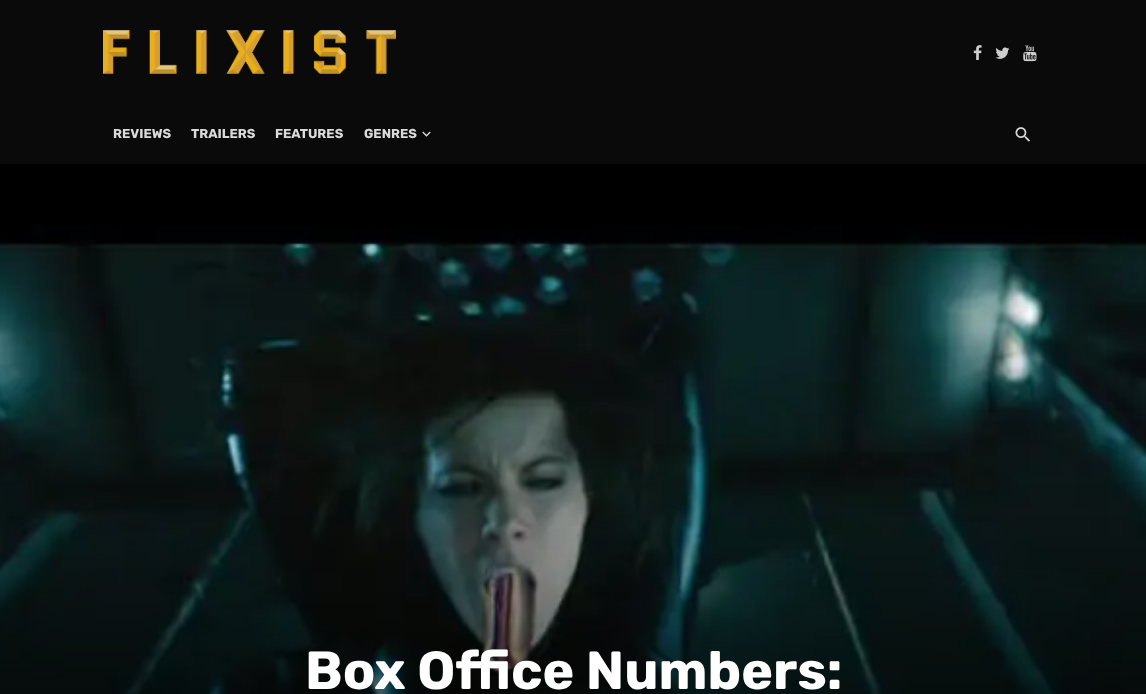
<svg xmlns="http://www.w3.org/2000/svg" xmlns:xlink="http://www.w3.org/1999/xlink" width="1146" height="694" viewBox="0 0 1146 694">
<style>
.cls-1{font:bold 13px Rubik;fill:#dadada}
.cls-2{font:bold 53.5px Rubik;fill:#ffffff}
</style>
<rect width="100%" height="100%" fill="#ffffff"/>
<rect fill="#0a0a0a" x="0" y="0" width="1146" height="164"/>
<image xlink:href="image0.png" x="103" y="30" width="293" height="44"/>
<image xlink:href="image1.png" x="973" y="45" width="9" height="15"/>
<image xlink:href="image2.png" x="995" y="47" width="15" height="12"/>
<image xlink:href="image3.png" x="1023" y="45" width="14" height="17"/>
<image xlink:href="image4.png" x="422" y="131" width="9" height="6"/>
<image xlink:href="image5.png" x="1015" y="127" width="15" height="15"/>
<image xlink:href="image6.png" x="0" y="164" width="1146" height="530"/>
<text class="cls-1" x="113" y="138">REVIEWS</text>
<text class="cls-1" x="191" y="138">TRAILERS</text>
<text class="cls-1" x="275" y="138">FEATURES</text>
<text class="cls-1" x="364" y="138">GENRES</text>
<text class="cls-2" x="305" y="689">Box Office Numbers:</text>
</svg>
